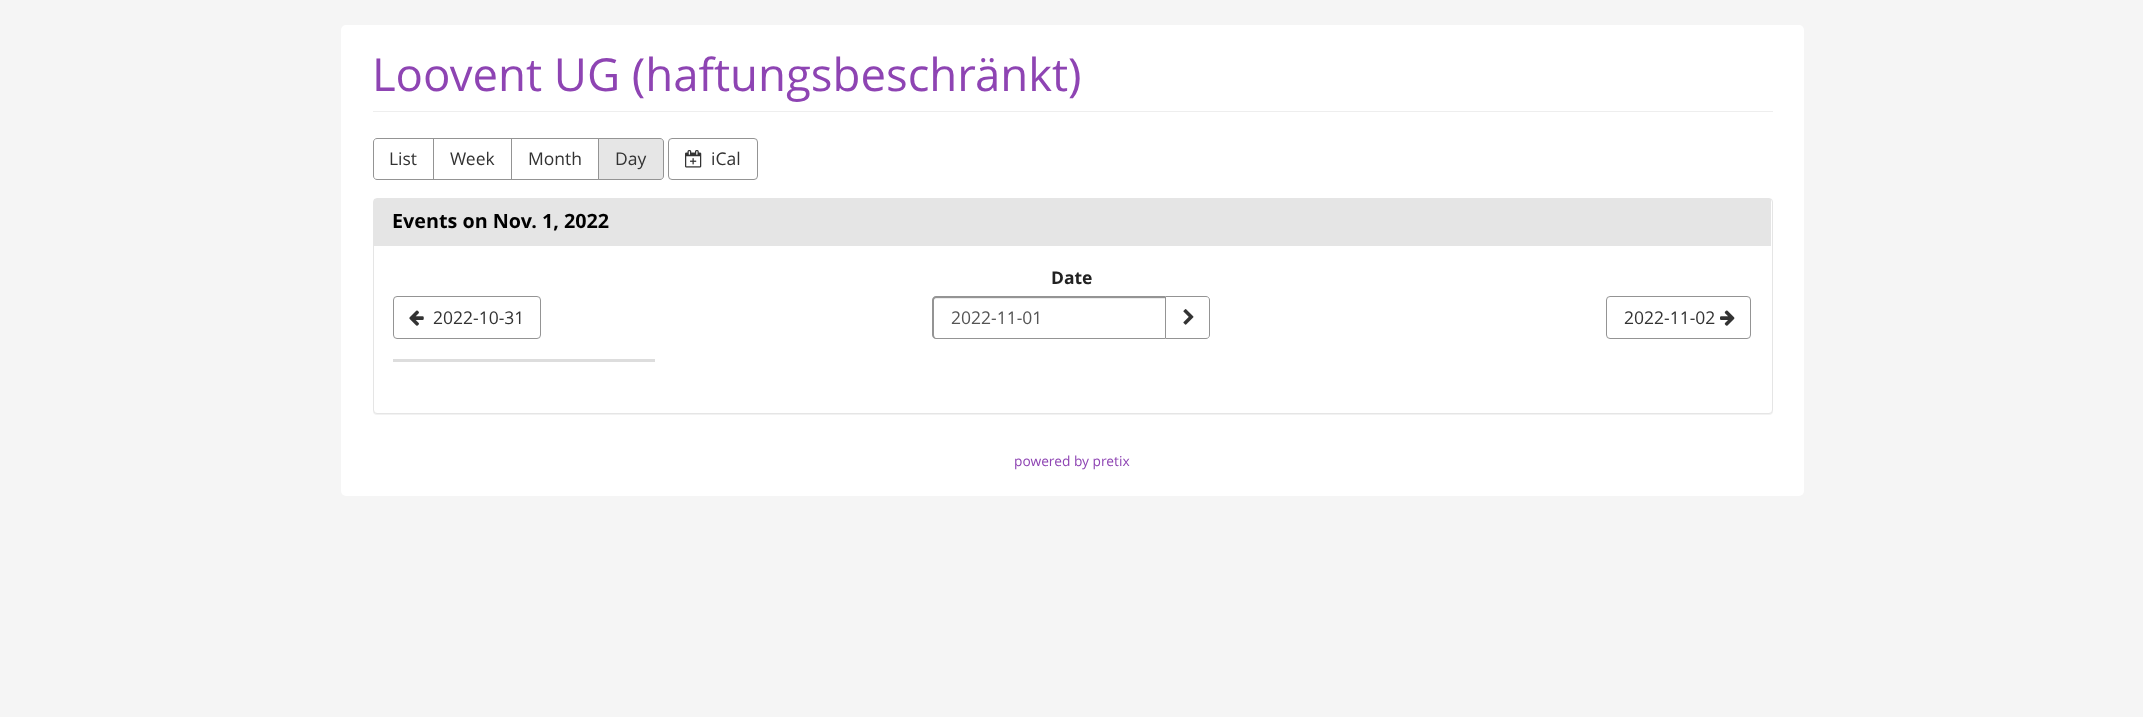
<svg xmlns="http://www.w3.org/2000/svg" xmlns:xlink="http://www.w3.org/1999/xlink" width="2143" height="717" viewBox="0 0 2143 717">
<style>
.cls-1{font:45.5px Open Sans;fill:#8e44b3}
.cls-2{font:17.5px Open Sans;fill:#333333}
.cls-3{font:bold 19.75px Open Sans;fill:#000000}
.cls-4{font:bold 17.5px Open Sans;fill:#222222}
.cls-5{font:17.5px Open Sans;fill:#555555}
.cls-6{font:13.75px Open Sans;fill:#8e44b3}
</style>
<rect width="100%" height="100%" fill="#f5f5f5"/>
<rect fill="#ffffff" x="341" y="25" width="1463" height="471" rx="5"/>
<rect fill="#eeeeee" x="373" y="111" width="1400" height="1"/>
<path fill="none" stroke="#949494" d="M377 138.5H433.5V179.5H377C375 179.5 373.5 178 373.5 176V142C373.5 140 375 138.5 377 138.5Z"/>
<rect fill="none" stroke="#949494" x="433.5" y="138.5" width="79" height="41"/>
<rect fill="#ffffff" x="512" y="139" width="1" height="40"/>
<rect fill="none" stroke="#949494" x="511.5" y="138.5" width="87" height="41"/>
<path fill="#e6e6e6" stroke="#949494" d="M598.5 138.5H660C662 138.5 663.5 140 663.5 142V176C663.5 178 662 179.5 660 179.5H598.5Z"/>
<rect fill="none" stroke="#949494" x="668.5" y="138.5" width="89" height="41" rx="3.5"/>
<image xlink:href="image0.png" x="685" y="150" width="17" height="18"/>
<rect fill="#000000" fill-opacity="0.05" filter="blur(0.5px)" x="373" y="199" width="1400" height="216" rx="4"/>
<rect fill="#ffffff" stroke="#e5e5e5" x="373.5" y="198.5" width="1399" height="215" rx="3.5"/>
<rect fill="#e5e5e5" x="374" y="199" width="1397" height="47"/>
<rect fill="none" stroke="#949494" x="393.5" y="296.5" width="147" height="42" rx="3.5"/>
<image xlink:href="image1.png" x="409" y="310" width="15" height="16"/>
<path fill="#ececec" d="M936 299H1165V298H936C935 298 934 299 934 301C934 300 935 299 936 299Z"/>
<path fill="#949494" fill-rule="evenodd" d="M936 296H1165V339H936C934 339 932 337 932 335V300C932 298 934 296 936 296ZM936 298H1165V338H936C935 338 934 336 934 335V300C934 299 935 298 936 298Z"/>
<path fill="none" stroke="#949494" d="M1165.5 296.5H1206C1208 296.5 1209.5 298 1209.5 300V335C1209.5 337 1208 338.5 1206 338.5H1165.5Z"/>
<image xlink:href="image2.png" x="1183" y="309" width="11" height="16"/>
<rect fill="none" stroke="#949494" x="1606.5" y="296.5" width="144" height="42" rx="3.5"/>
<image xlink:href="image3.png" x="1720" y="310" width="15" height="16"/>
<rect fill="#dddddd" x="393" y="359" width="262" height="3"/>
<text class="cls-1" x="372" y="91">Loovent UG (haftungsbeschränkt)</text>
<text class="cls-2" x="389" y="165">List</text>
<text class="cls-2" x="450" y="165">Week</text>
<text class="cls-2" x="528" y="165">Month</text>
<text class="cls-2" x="615" y="165">Day</text>
<text class="cls-2" x="711" y="165">iCal</text>
<text class="cls-3" x="392" y="228">Events on Nov. 1, 2022</text>
<text class="cls-2" x="433" y="324">2022-10-31</text>
<text class="cls-4" x="1051" y="284">Date</text>
<text class="cls-5" x="951" y="324">2022-11-01</text>
<text class="cls-2" x="1624" y="324">2022-11-02</text>
<text class="cls-6" x="1014" y="466">powered by pretix</text>
</svg>
